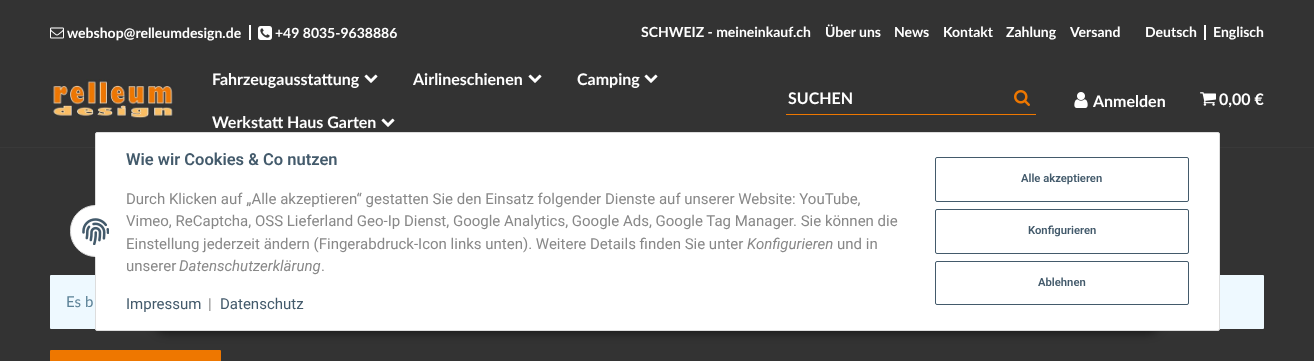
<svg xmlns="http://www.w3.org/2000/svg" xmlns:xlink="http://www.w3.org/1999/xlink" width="1314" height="361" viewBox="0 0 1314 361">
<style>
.cls-1{font:bold 14px Lato;fill:#ffffff}
.cls-2{font:bold 16px Lato;fill:#ffffff}
.cls-3{font:15px Lato;fill:#5d8398}
.cls-4{font:600 16.5px Roboto;fill:#435a6b}
.cls-5{font:15px Roboto;fill:#888888}
.cls-6{font:italic 15px Roboto;fill:#888888}
.cls-7{font:15px Roboto;fill:#435a6b}
.cls-8{font:600 11.25px Roboto;fill:#435a6b}
</style>
<rect width="100%" height="100%" fill="#333333"/>
<image xlink:href="image0.png" x="50" y="27" width="14" height="12"/>
<rect fill="#ffffff" x="249" y="25" width="2" height="15"/>
<image xlink:href="image1.png" x="258" y="26" width="14" height="14"/>
<rect fill="#ffffff" x="1204" y="25" width="2" height="15"/>
<image xlink:href="image2.png" x="50" y="79" width="125" height="40"/>
<image xlink:href="image3.png" x="364" y="74" width="14" height="9"/>
<image xlink:href="image3.png" x="528" y="74" width="14" height="9"/>
<image xlink:href="image3.png" x="644" y="74" width="14" height="9"/>
<image xlink:href="image3.png" x="381" y="118" width="14" height="9"/>
<rect fill="#ee7700" x="786" y="114" width="250" height="1"/>
<image xlink:href="image4.png" x="1014" y="90" width="16" height="16"/>
<image xlink:href="image5.png" x="1074" y="92" width="14" height="16"/>
<image xlink:href="image6.png" x="1200" y="92" width="16" height="14"/>
<rect fill="#393939" x="0" y="147" width="1314" height="1"/>
<rect fill="#eef9ff" x="50" y="275" width="1214" height="54" rx="1"/>
<rect fill="#ee7700" x="50" y="350" width="171" height="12" rx="1"/>
<rect fill="#000000" fill-opacity="0.45" filter="blur(4.5px)" x="152" y="304" width="1010" height="30" rx="15"/>
<rect fill="#ffffff" stroke="#dddddd" x="95.5" y="132.5" width="1124" height="198" rx="1.5"/>
<rect fill="#ffffff" stroke="#dddddd" x="70.5" y="205.5" width="50" height="51" rx="25"/>
<rect fill="#ffffff" x="95" y="205" width="26" height="52"/>
<image xlink:href="image7.png" x="82" y="218" width="27" height="27"/>
<rect fill="none" stroke="#435a6b" x="935.5" y="157.5" width="253" height="44" rx="1.5"/>
<rect fill="none" stroke="#435a6b" x="935.5" y="209.5" width="253" height="44" rx="1.5"/>
<rect fill="none" stroke="#435a6b" x="935.5" y="261.5" width="253" height="43" rx="1.5"/>
<text class="cls-1" x="67" y="38">webshop@relleumdesign.de</text>
<text class="cls-1" x="275" y="38">+49 8035-9638886</text>
<text class="cls-1" x="641" y="37">SCHWEIZ - meineinkauf.ch</text>
<text class="cls-1" x="825" y="37">Über uns</text>
<text class="cls-1" x="894" y="37">News</text>
<text class="cls-1" x="943" y="37">Kontakt</text>
<text class="cls-1" x="1006" y="37">Zahlung</text>
<text class="cls-1" x="1070" y="37">Versand</text>
<text class="cls-1" x="1145" y="37">Deutsch</text>
<text class="cls-1" x="1213" y="37">Englisch</text>
<text class="cls-2" x="212" y="85">Fahrzeugausstattung</text>
<text class="cls-2" x="413" y="85">Airlineschienen</text>
<text class="cls-2" x="577" y="85">Camping</text>
<text class="cls-2" x="212" y="128">Werkstatt Haus Garten</text>
<text class="cls-2" x="788" y="104">SUCHEN</text>
<text class="cls-2" x="1093" y="107">Anmelden</text>
<text class="cls-2" x="1219" y="105">0,00 €</text>
<text class="cls-3" x="66" y="307">Es b</text>
<text class="cls-4" x="126" y="165">Wie wir Cookies &amp; Co nutzen</text>
<text class="cls-5"><tspan x="126" y="204">Durch Klicken auf „Alle akzeptieren“ gestatten Sie den Einsatz folgender Dienste auf unserer Website: YouTube,</tspan><tspan x="126" y="226">Vimeo, ReCaptcha, OSS Lieferland Geo-Ip Dienst, Google Analytics, Google Ads, Google Tag Manager. Sie können die</tspan><tspan x="126" y="249">Einstellung jederzeit ändern (Fingerabdruck-Icon links unten). Weitere Details finden Sie unter</tspan></text>
<text class="cls-6" x="747" y="249">Konfigurieren</text>
<text class="cls-5" x="837" y="249">und in</text>
<text class="cls-5" x="126" y="271">unserer</text>
<text class="cls-6" x="179" y="271">Datenschutzerklärung</text>
<text class="cls-5" x="321" y="271">.</text>
<text class="cls-7" x="126" y="309">Impressum</text>
<text class="cls-5" x="208" y="309">|</text>
<text class="cls-7" x="220" y="309">Datenschutz</text>
<text class="cls-8" x="1021" y="182">Alle akzeptieren</text>
<text class="cls-8" x="1028" y="234">Konfigurieren</text>
<text class="cls-8" x="1038" y="286">Ablehnen</text>
</svg>
